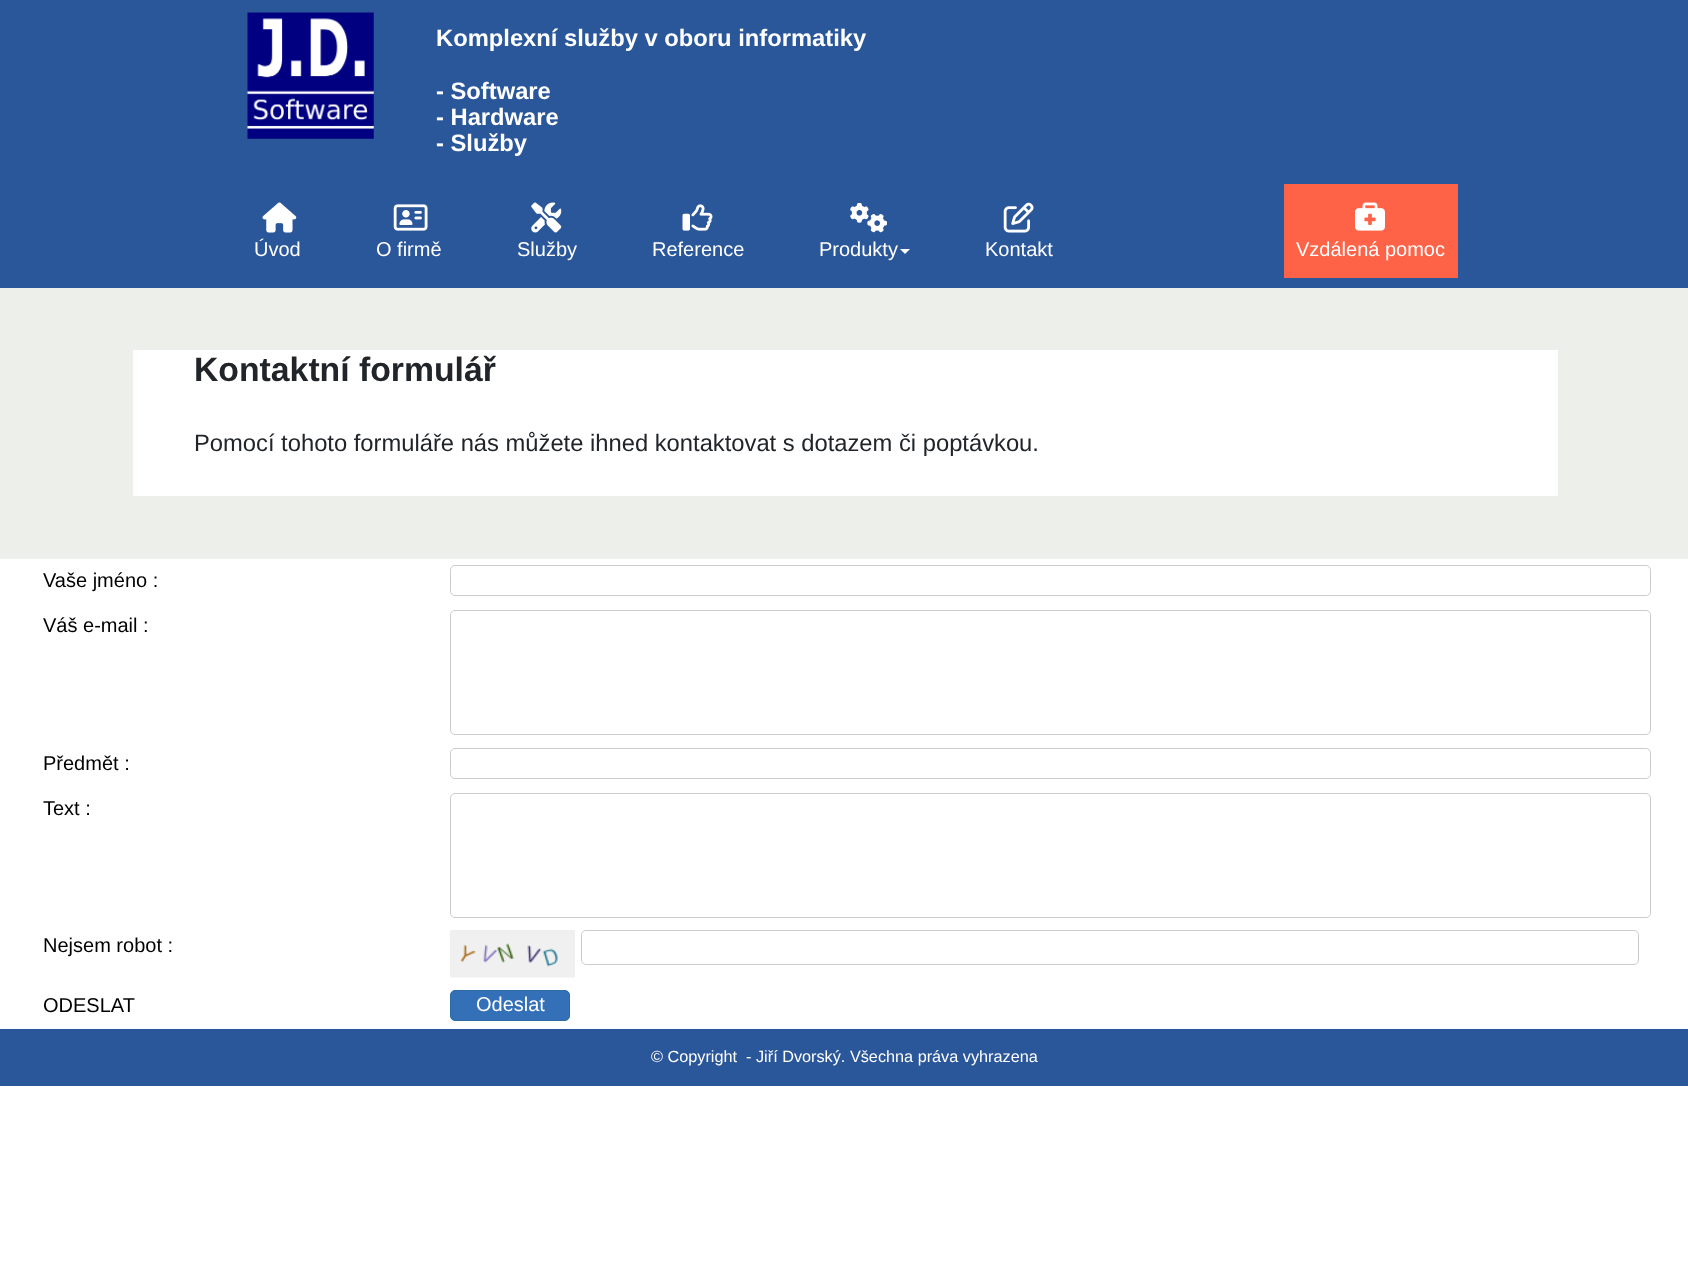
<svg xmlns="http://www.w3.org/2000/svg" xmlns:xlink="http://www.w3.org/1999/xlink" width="1688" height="1266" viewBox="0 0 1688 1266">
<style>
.cls-1{font:bold 23.75px Liberation Sans;fill:#ffffff}
.cls-2{font:20px Liberation Sans;fill:#ffffff}
.cls-3{font:bold 33.75px Liberation Sans;fill:#212529}
.cls-4{font:23.75px Liberation Sans;fill:#212529}
.cls-5{font:20px Liberation Sans;fill:#000000}
.cls-6{font:16.25px Liberation Sans;fill:#ffffff}
</style>
<rect width="100%" height="100%" fill="#ffffff"/>
<rect fill="#2a569a" x="0" y="0" width="1688" height="288"/>
<image xlink:href="image0.png" x="247" y="12" width="127" height="127"/>
<image xlink:href="image1.png" x="262" y="202" width="35" height="31"/>
<image xlink:href="image2.png" x="393" y="204" width="35" height="27"/>
<image xlink:href="image3.png" x="531" y="202" width="31" height="31"/>
<image xlink:href="image4.png" x="682" y="204" width="31" height="27"/>
<image xlink:href="image5.png" x="850" y="203" width="37" height="30"/>
<path fill="#ffffff" d="M900 249H910L905 254Z"/>
<image xlink:href="image6.png" x="1003" y="202" width="31" height="31"/>
<rect fill="#ff6347" x="1284" y="184" width="174" height="94"/>
<image xlink:href="image7.png" x="1355" y="202" width="30" height="29"/>
<rect fill="#edefeb" x="0" y="288" width="1688" height="271"/>
<rect fill="#ffffff" x="133" y="350" width="1425" height="146"/>
<rect fill="none" stroke="#cccccc" x="450.5" y="565.5" width="1200" height="30" rx="4.5"/>
<rect fill="none" stroke="#cccccc" x="450.5" y="610.5" width="1200" height="124" rx="4.5"/>
<rect fill="none" stroke="#cccccc" x="450.5" y="748.5" width="1200" height="30" rx="4.5"/>
<rect fill="none" stroke="#cccccc" x="450.5" y="793.5" width="1200" height="124" rx="4.5"/>
<image xlink:href="image8.png" x="450" y="930" width="125" height="48"/>
<rect fill="none" stroke="#cccccc" x="581.5" y="930.5" width="1057" height="34" rx="4.5"/>
<rect fill="#3370b7" stroke="#2e6da4" x="450.5" y="990.5" width="119" height="30" rx="4.5"/>
<rect fill="#2a569a" x="0" y="1029" width="1688" height="57"/>
<text class="cls-1" x="436" y="46">Komplexní služby v oboru informatiky</text>
<text class="cls-1"><tspan x="436" y="99">- Software</tspan><tspan x="436" y="125">- Hardware</tspan><tspan x="436" y="151">- Služby</tspan></text>
<text class="cls-2" x="254" y="256">Úvod</text>
<text class="cls-2" x="376" y="256">O firmě</text>
<text class="cls-2" x="517" y="256">Služby</text>
<text class="cls-2" x="652" y="256">Reference</text>
<text class="cls-2" x="819" y="256">Produkty</text>
<text class="cls-2" x="985" y="256">Kontakt</text>
<text class="cls-2" x="1296" y="256">Vzdálená pomoc</text>
<text class="cls-3" x="194" y="381">Kontaktní formulář</text>
<text class="cls-4" x="194" y="451">Pomocí tohoto formuláře nás můžete ihned kontaktovat s dotazem či poptávkou.</text>
<text class="cls-5" x="43" y="587">Vaše jméno :</text>
<text class="cls-5" x="43" y="632">Váš e-mail :</text>
<text class="cls-5" x="43" y="770">Předmět :</text>
<text class="cls-5" x="43" y="815">Text :</text>
<text class="cls-5" x="43" y="952">Nejsem robot :</text>
<text class="cls-5" x="43" y="1012">ODESLAT</text>
<text class="cls-2" x="476" y="1011">Odeslat</text>
<text class="cls-6" xml:space="preserve" x="651" y="1062">© Copyright  - Jiří Dvorský. Všechna práva vyhrazena</text>
</svg>
